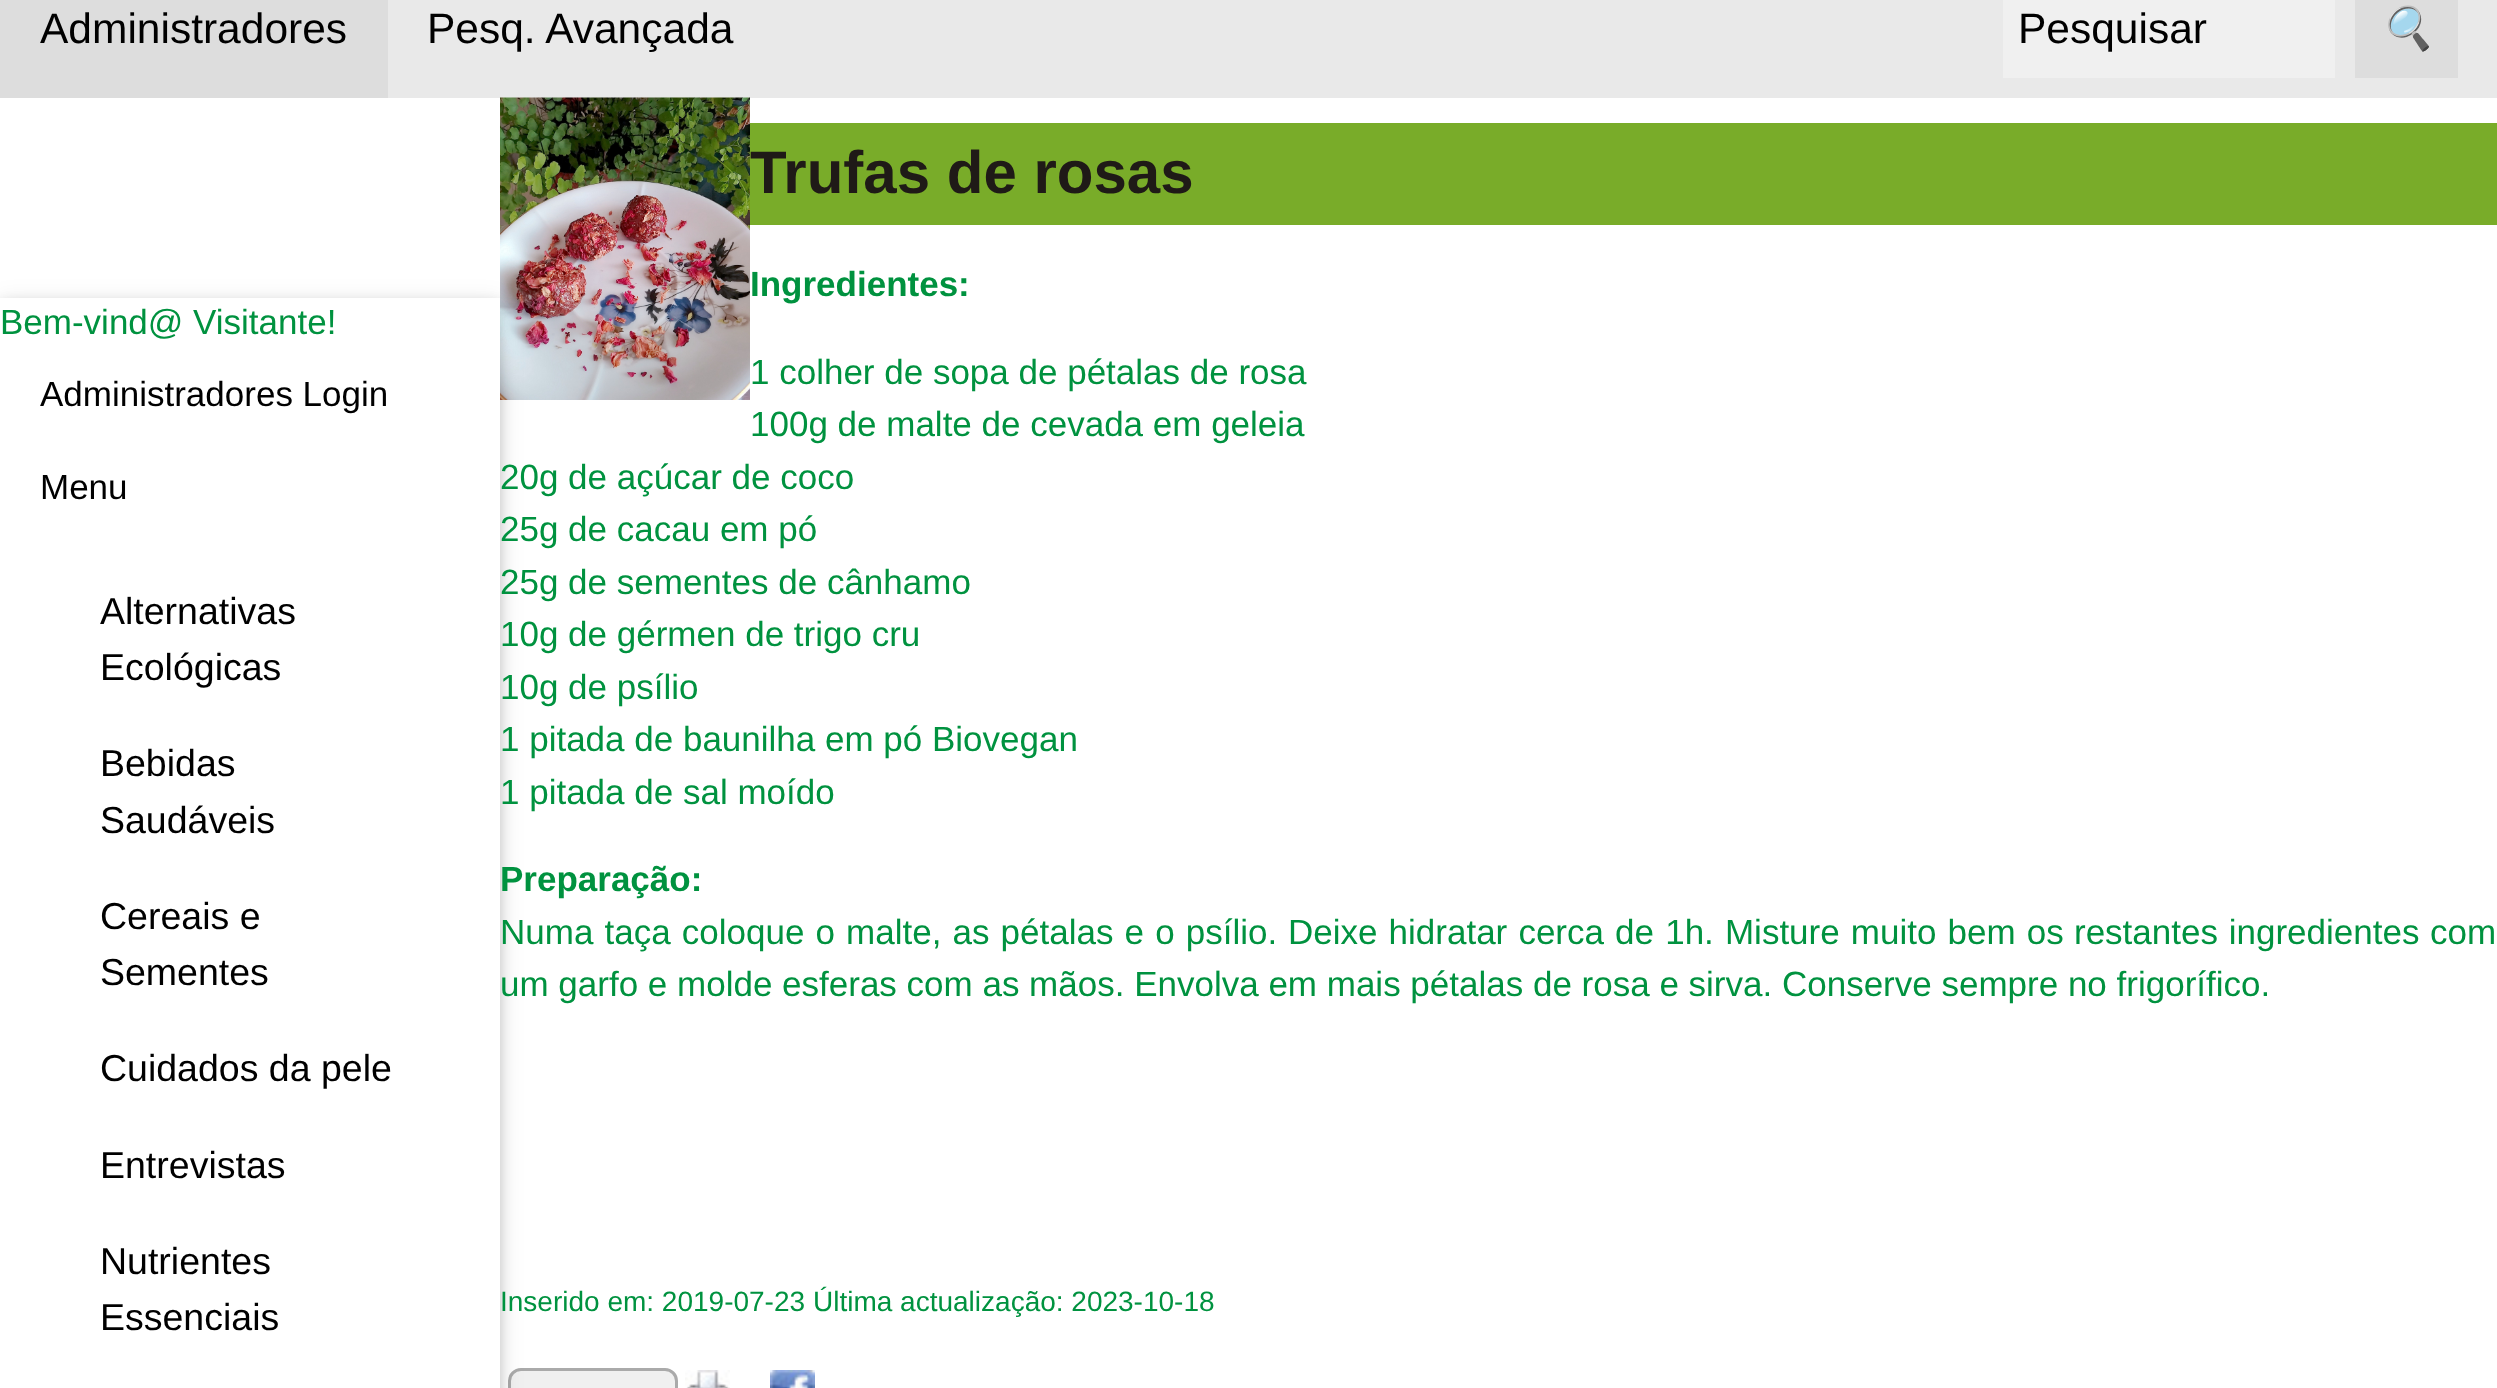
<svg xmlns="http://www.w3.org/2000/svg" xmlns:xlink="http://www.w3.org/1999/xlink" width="2497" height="1388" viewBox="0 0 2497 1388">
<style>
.cls-1{font:42.5px Liberation Sans;fill:#000000}
.cls-2{font:italic 42.5px Noto Color Emoji;fill:#000000}
.cls-3{font:35px Liberation Sans;fill:#00923f}
.cls-4{font:35px Liberation Sans;fill:#000000}
.cls-5{font:37.5px Liberation Sans;fill:#000000}
.cls-6{font:bold 60px Liberation Sans;fill:#1f1a17}
.cls-7{font:bold 35px Liberation Sans;fill:#00923f}
.cls-8{font:28px Liberation Sans;fill:#00923f}
</style>
<defs>
<clipPath id="clip1"><path d="M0 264H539V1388H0ZM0 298H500V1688H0Z" clip-rule="evenodd"/></clipPath>
<clipPath id="clip2"><path d="M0 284H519V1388H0ZM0 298H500V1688H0Z" clip-rule="evenodd"/></clipPath>
</defs>
<rect width="100%" height="100%" fill="#ffffff"/>
<rect fill="#e9e9e9" x="388" y="0" width="2109" height="98"/>
<rect fill="#dddddd" x="0" y="0" width="388" height="98"/>
<rect fill="#f0f0f0" x="2003" y="0" width="332" height="78"/>
<rect fill="#dddddd" x="2355" y="0" width="103" height="78"/>
<image xlink:href="image0.png" x="500" y="97" width="250" height="303"/>
<rect fill="#f0f0f0" stroke="#aaaaaa" stroke-width="3" x="509.5" y="1369.5" width="167" height="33" rx="11.5"/>
<g clip-path="url(#clip1)">
<rect fill="#000000" fill-opacity="0.12" filter="blur(12.5px)" x="0" y="303" width="500" height="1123"/>
</g>
<g clip-path="url(#clip2)">
<rect fill="#000000" fill-opacity="0.16" filter="blur(6px)" x="0" y="303" width="500" height="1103"/>
</g>
<rect fill="#79ac29" x="750" y="123" width="1747" height="102"/>
<image xlink:href="image1.png" x="685" y="1370" width="45" height="18"/>
<image xlink:href="image2.png" x="770" y="1370" width="45" height="18"/>
<text class="cls-1" x="40" y="43">Administradores</text>
<text class="cls-1" x="427" y="43">Pesq. Avançada</text>
<text class="cls-1" x="2018" y="43">Pesquisar</text>
<text class="cls-2" x="2380" y="43">🔍</text>
<text class="cls-3" x="0" y="334">Bem-vind@ Visitante!</text>
<text class="cls-4" x="40" y="406">Administradores Login</text>
<text class="cls-4" x="40" y="499">Menu</text>
<text class="cls-5"><tspan x="100" y="624">Alternativas</tspan><tspan x="100" y="680">Ecológicas</tspan></text>
<text class="cls-5"><tspan x="100" y="776">Bebidas</tspan><tspan x="100" y="833">Saudáveis</tspan></text>
<text class="cls-5"><tspan x="100" y="929">Cereais e</tspan><tspan x="100" y="985">Sementes</tspan></text>
<text class="cls-5" x="100" y="1081">Cuidados da pele</text>
<text class="cls-5" x="100" y="1178">Entrevistas</text>
<text class="cls-5"><tspan x="100" y="1274">Nutrientes</tspan><tspan x="100" y="1330">Essenciais</tspan></text>
<text class="cls-6" x="750" y="193">Trufas de rosas</text>
<text class="cls-7" x="750" y="296">Ingredientes:</text>
<text class="cls-3"><tspan x="750" y="384">1 colher de sopa de pétalas de rosa</tspan><tspan x="750" y="436">100g de malte de cevada em geleia</tspan></text>
<text class="cls-3"><tspan x="500" y="489">20g de açúcar de coco</tspan><tspan x="500" y="541">25g de cacau em pó</tspan><tspan x="500" y="594">25g de sementes de cânhamo</tspan><tspan x="500" y="646">10g de gérmen de trigo cru</tspan><tspan x="500" y="699">10g de psílio</tspan><tspan x="500" y="751">1 pitada de baunilha em pó Biovegan</tspan><tspan x="500" y="804">1 pitada de sal moído</tspan></text>
<text class="cls-7" x="500" y="891">Preparação:</text>
<text class="cls-3" x="500" y="944" word-spacing="1.4">Numa taça coloque o malte, as pétalas e o psílio.</text>
<text class="cls-3" x="1288" y="944" word-spacing="1.4">Deixe hidratar cerca de 1h. Misture muito bem os</text>
<text class="cls-3" x="2074" y="944" word-spacing="1">restantes ingredientes com</text>
<text class="cls-3" x="500" y="996">um garfo e molde esferas com as mãos. Envolva em mais pétalas de rosa e sirva. Conserve sempre no frigorífico.</text>
<text class="cls-8" x="500" y="1311">Inserido em: 2019-07-23</text>
<text class="cls-8" x="813" y="1311">Última actualização: 2023-10-18</text>
</svg>
